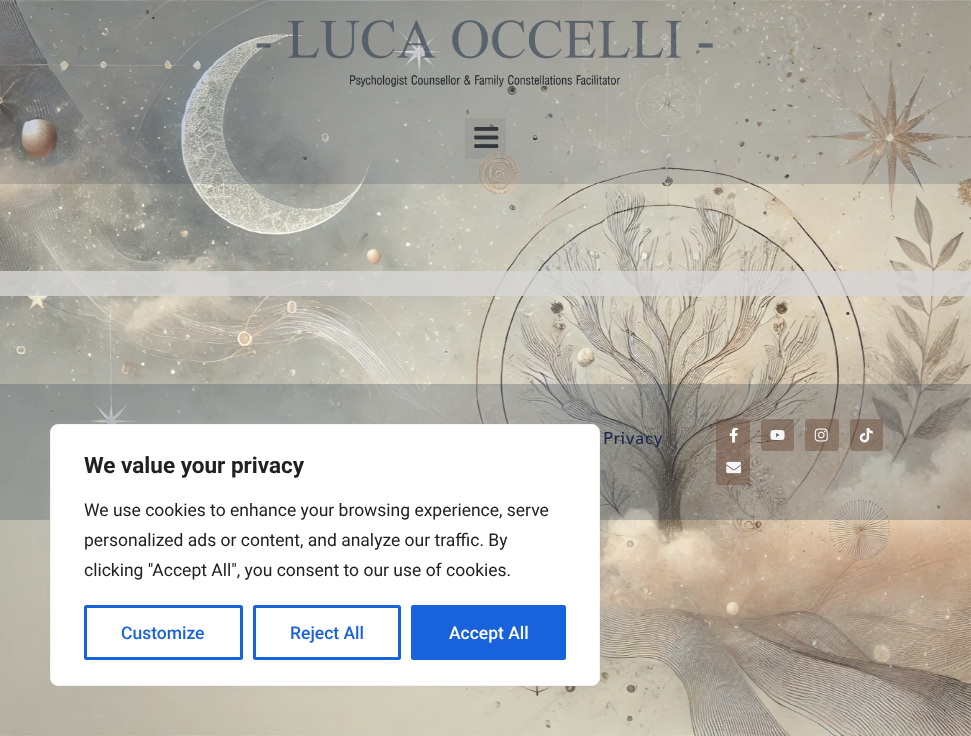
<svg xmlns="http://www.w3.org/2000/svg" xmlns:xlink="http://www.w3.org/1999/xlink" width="971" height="736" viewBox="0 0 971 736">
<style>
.cls-1{font:17.5px Shanti;letter-spacing:0.75px;fill:#1c244b}
.cls-2{font:bold 22.5px Roboto;fill:#212121}
.cls-3{font:17.5px Roboto;fill:#212121}
.cls-4{font:500 17.5px Roboto;fill:#1863dc}
.cls-5{font:500 17.5px Roboto;fill:#ffffff}
</style>
<rect width="100%" height="100%" fill="#ffffff"/>
<image xlink:href="image0.png" x="0" y="0" width="971" height="736"/>
<rect fill="#3c4858" fill-opacity="0.2" x="0" y="0" width="971" height="184"/>
<image xlink:href="image1.png" x="256" y="20" width="457" height="67"/>
<rect fill="#000000" fill-opacity="0.05" x="465" y="118" width="41" height="41"/>
<image xlink:href="image2.png" x="474" y="127" width="25" height="21"/>
<rect fill="#d6d6d6" fill-opacity="0.8" x="0" y="271" width="971" height="25"/>
<rect fill="#3c4858" fill-opacity="0.29" x="0" y="384" width="971" height="136"/>
<rect fill="#6d4936" fill-opacity="0.44" x="716" y="419" width="34" height="32" rx="3"/>
<image xlink:href="image3.png" x="729" y="428" width="9" height="15"/>
<rect fill="#6d4936" fill-opacity="0.44" x="761" y="419" width="33" height="32" rx="3"/>
<image xlink:href="image4.png" x="770" y="430" width="15" height="10"/>
<rect fill="#6d4936" fill-opacity="0.44" x="805" y="419" width="34" height="32" rx="3"/>
<image xlink:href="image5.png" x="814" y="428" width="14" height="14"/>
<rect fill="#6d4936" fill-opacity="0.44" x="850" y="419" width="33" height="32" rx="3"/>
<image xlink:href="image6.png" x="859" y="428" width="14" height="15"/>
<rect fill="#6d4936" fill-opacity="0.44" x="716" y="451" width="34" height="34" rx="3"/>
<image xlink:href="image7.png" x="726" y="461" width="15" height="13"/>
<rect fill="#acabab" fill-opacity="0.3" filter="blur(6px)" x="50" y="423" width="550" height="262" rx="8"/>
<rect fill="#ffffff" stroke="#f4f4f4" x="50.5" y="424.5" width="549" height="261" rx="7.5"/>
<rect fill="none" stroke="#1863dc" stroke-width="3" x="85.5" y="606.5" width="156" height="52" rx="1"/>
<rect fill="none" stroke="#1863dc" stroke-width="3" x="254.5" y="606.5" width="145" height="52" rx="1"/>
<rect fill="#1863dc" stroke="#1863dc" stroke-width="3" x="412.5" y="606.5" width="152" height="52" rx="1"/>
<text class="cls-1" x="603" y="444">Privacy</text>
<text class="cls-2" x="84" y="473">We value your privacy</text>
<text class="cls-3"><tspan x="84" y="516">We use cookies to enhance your browsing experience, serve</tspan><tspan x="84" y="546">personalized ads or content, and analyze our traffic. By</tspan><tspan x="84" y="576">clicking "Accept All", you consent to our use of cookies.</tspan></text>
<text class="cls-4" x="121" y="639">Customize</text>
<text class="cls-4" x="290" y="639">Reject All</text>
<text class="cls-5" x="449" y="639">Accept All</text>
</svg>
